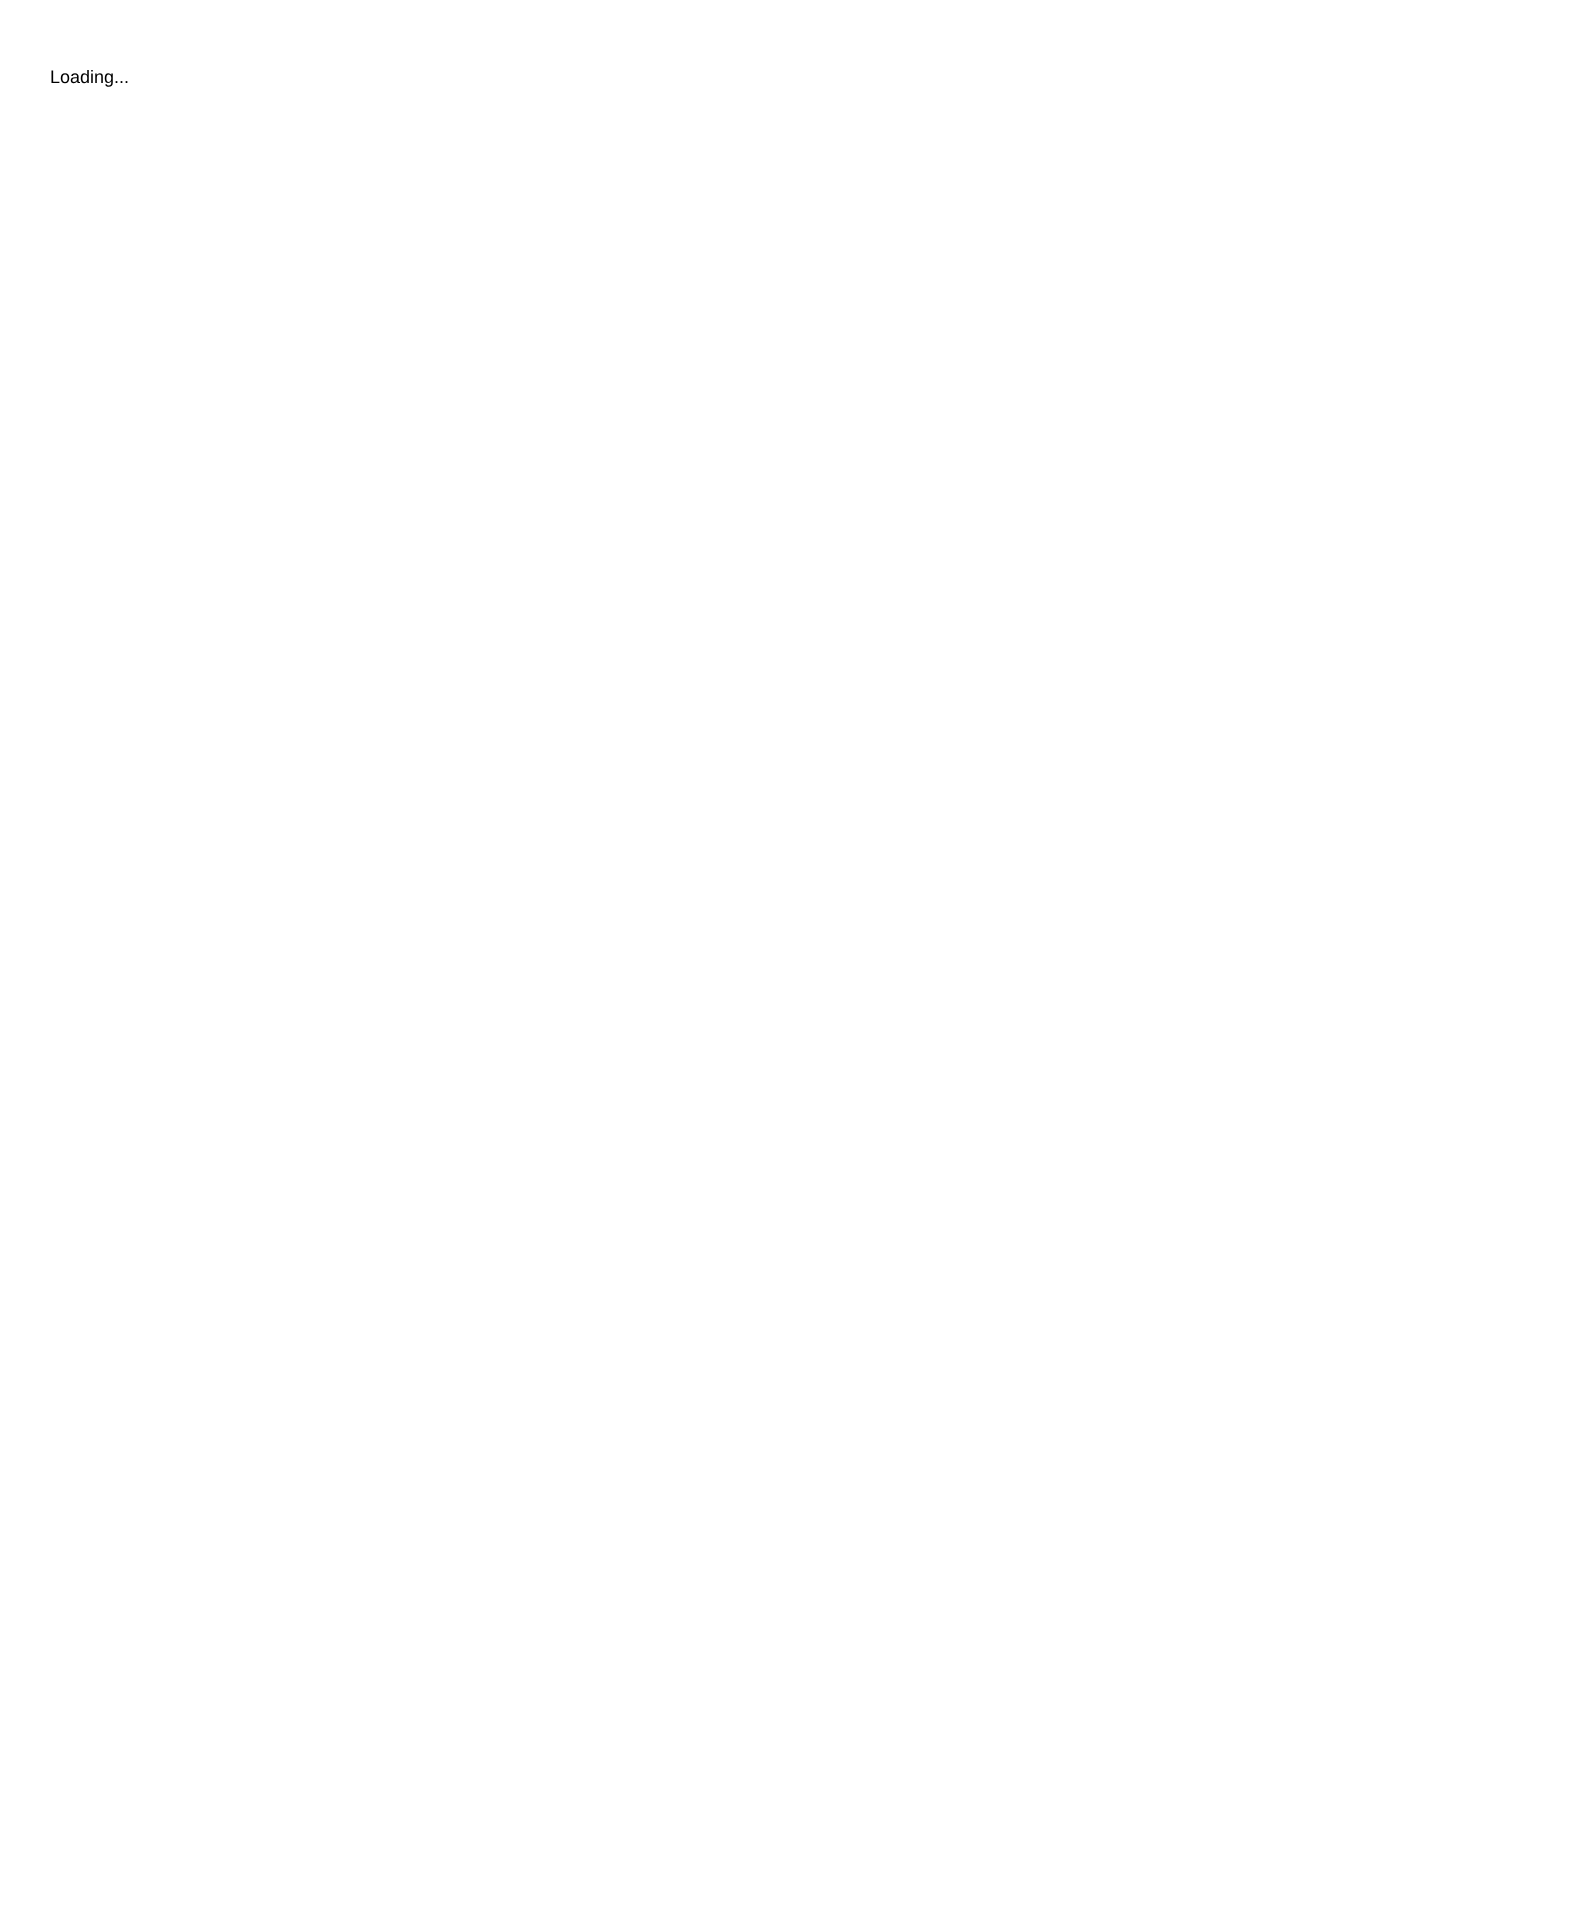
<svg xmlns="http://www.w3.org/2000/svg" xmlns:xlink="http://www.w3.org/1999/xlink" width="1579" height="1921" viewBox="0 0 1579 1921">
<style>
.cls-1{font:18px Liberation Sans;fill:#000000}
</style>
<rect width="100%" height="100%" fill="#ffffff"/>
<text class="cls-1" x="50" y="83">Loading...</text>
</svg>
